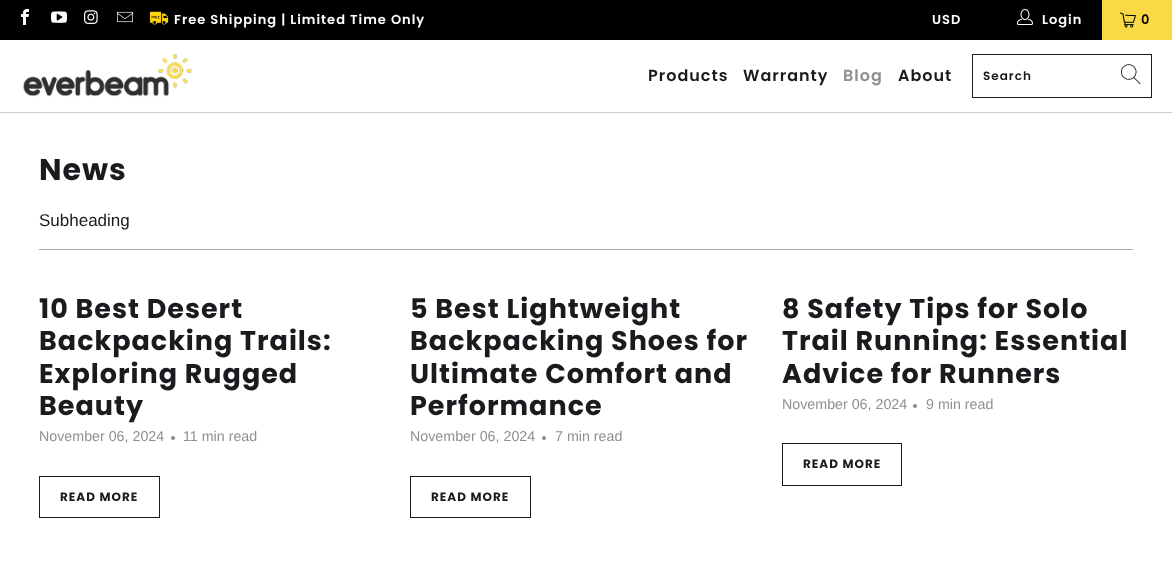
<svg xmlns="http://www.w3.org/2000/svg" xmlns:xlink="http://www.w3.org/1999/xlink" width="1172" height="570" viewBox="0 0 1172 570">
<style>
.cls-1{font:600 13px Poppins;letter-spacing:1px;fill:#ffffff}
.cls-2{font:600 13px Poppins;letter-spacing:1px;fill:#000000}
.cls-3{font:600 16px Poppins;letter-spacing:1px;fill:#1c1a1e}
.cls-4{font:600 16px Poppins;letter-spacing:1px;fill:#8f8f8f}
.cls-5{font:600 12px Poppins;letter-spacing:1px;fill:#1c1a1e}
.cls-6{font:bold 30px Poppins;letter-spacing:1px;fill:#1c1a1e}
.cls-7{font:17px Liberation Sans;fill:#1c1a1e}
.cls-8{font:bold 27px Poppins;letter-spacing:1px;fill:#1c1a1e}
.cls-9{font:14.25px Liberation Sans;fill:#8f8f8f}
.cls-10{font:bold 12px Poppins;letter-spacing:1px;fill:#1c1a1e}
</style>
<rect width="100%" height="100%" fill="#ffffff"/>
<rect fill="#000000" x="0" y="0" width="1102" height="40"/>
<image xlink:href="image0.png" x="21" y="9" width="8" height="16"/>
<image xlink:href="image1.png" x="51" y="11" width="16" height="12"/>
<image xlink:href="image2.png" x="84" y="10" width="14" height="14"/>
<image xlink:href="image3.png" x="117" y="11" width="16" height="12"/>
<image xlink:href="image4.png" x="149" y="11" width="20" height="14"/>
<image xlink:href="image5.png" x="1017" y="9" width="16" height="16"/>
<rect fill="#fad946" x="1102" y="0" width="70" height="40"/>
<image xlink:href="image6.png" x="1120" y="12" width="16" height="16"/>
<rect fill="#cccccc" x="0" y="112" width="1172" height="1"/>
<image xlink:href="image7.png" x="23" y="53" width="170" height="44"/>
<rect fill="none" stroke="#1c1a1e" x="972.5" y="54.5" width="179" height="43"/>
<image xlink:href="image8.png" x="1121" y="64" width="20" height="21"/>
<rect fill="#aaaaaa" x="39" y="249" width="1094" height="1"/>
<circle fill="#8c8b8b" cx="173" cy="438" r="2"/>
<rect fill="none" stroke="#1c1a1e" x="39.5" y="476.5" width="120" height="41"/>
<circle fill="#8c8b8b" cx="544" cy="438" r="2"/>
<rect fill="none" stroke="#1c1a1e" x="410.5" y="476.5" width="120" height="41"/>
<circle fill="#8c8b8b" cx="915" cy="406" r="2"/>
<rect fill="none" stroke="#1c1a1e" x="782.5" y="443.5" width="119" height="42"/>
<text class="cls-1" x="174" y="24">Free Shipping | Limited Time Only</text>
<text class="cls-1" x="932" y="24">USD</text>
<text class="cls-1" x="1042" y="24">Login</text>
<text class="cls-2" x="1141" y="24">0</text>
<text class="cls-3" x="648" y="81">Products</text>
<text class="cls-3" x="743" y="81">Warranty</text>
<text class="cls-4" x="843" y="81">Blog</text>
<text class="cls-3" x="898" y="81">About</text>
<text class="cls-5" x="983" y="80">Search</text>
<text class="cls-6" x="39" y="180">News</text>
<text class="cls-7" x="39" y="226">Subheading</text>
<text class="cls-8"><tspan x="39" y="318">10 Best Desert</tspan><tspan x="39" y="350">Backpacking Trails:</tspan><tspan x="39" y="383">Exploring Rugged</tspan><tspan x="39" y="415">Beauty</tspan></text>
<text class="cls-9" x="39" y="441">November 06, 2024</text>
<text class="cls-9" x="183" y="441">11 min read</text>
<text class="cls-10" x="60" y="501">READ MORE</text>
<text class="cls-8"><tspan x="410" y="318">5 Best Lightweight</tspan><tspan x="410" y="350">Backpacking Shoes for</tspan><tspan x="410" y="383">Ultimate Comfort and</tspan><tspan x="410" y="415">Performance</tspan></text>
<text class="cls-9" x="410" y="441">November 06, 2024</text>
<text class="cls-9" x="555" y="441">7 min read</text>
<text class="cls-10" x="431" y="501">READ MORE</text>
<text class="cls-8"><tspan x="782" y="318">8 Safety Tips for Solo</tspan><tspan x="782" y="350">Trail Running: Essential</tspan><tspan x="782" y="383">Advice for Runners</tspan></text>
<text class="cls-9" x="782" y="409">November 06, 2024</text>
<text class="cls-9" x="926" y="409">9 min read</text>
<text class="cls-10" x="803" y="468">READ MORE</text>
</svg>
